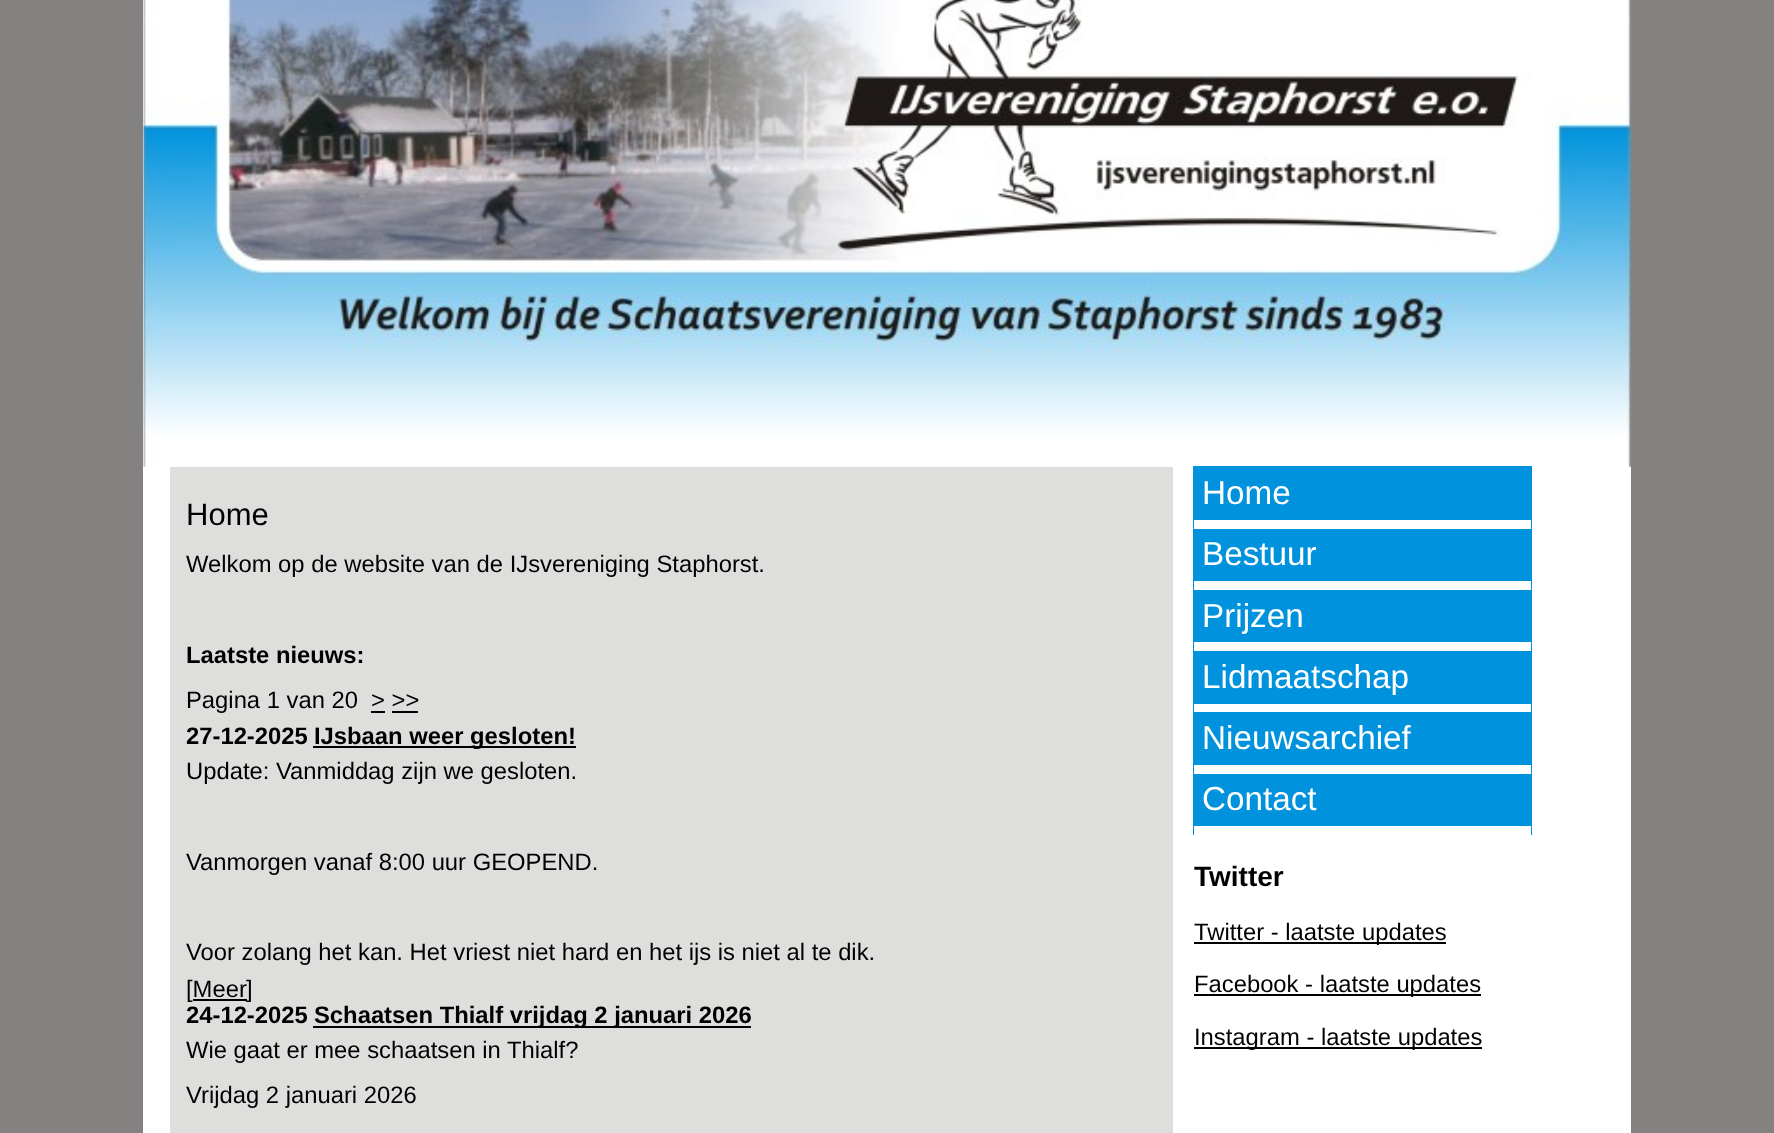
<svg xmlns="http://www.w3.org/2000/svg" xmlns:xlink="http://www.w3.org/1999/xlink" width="1774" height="1133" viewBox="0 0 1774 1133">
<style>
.cls-1{font:31px Liberation Sans;fill:#000000}
.cls-2{font:23.8px Liberation Sans;fill:#000000}
.cls-3{font:bold 23.8px Liberation Sans;fill:#000000}
.cls-4{font:33.25px Liberation Sans;fill:#ffffff}
.cls-5{font:bold 28px Liberation Sans;fill:#000000}
</style>
<rect width="100%" height="100%" fill="#838280"/>
<rect fill="#ffffff" x="143" y="0" width="1488" height="1133"/>
<image xlink:href="image0.png" x="143" y="0" width="1488" height="467"/>
<rect fill="#dededc" x="170" y="467" width="1003" height="666"/>
<rect fill="#000000" x="371" y="711" width="14" height="2"/>
<rect fill="#000000" x="392" y="711" width="26" height="2"/>
<rect fill="#000000" x="313" y="746" width="263" height="2"/>
<rect fill="#000000" x="193" y="999" width="54" height="2"/>
<rect fill="#000000" x="313" y="1026" width="438" height="2"/>
<rect fill="#0092dd" x="1193" y="466" width="339" height="369"/>
<rect fill="#ffffff" x="1194" y="520" width="337" height="9"/>
<rect fill="#ffffff" x="1194" y="581" width="337" height="9"/>
<rect fill="#ffffff" x="1194" y="642" width="337" height="9"/>
<rect fill="#ffffff" x="1194" y="704" width="337" height="8"/>
<rect fill="#ffffff" x="1194" y="765" width="337" height="9"/>
<rect fill="#ffffff" x="1194" y="826" width="337" height="9"/>
<rect fill="#000000" x="1194" y="942" width="252" height="2"/>
<rect fill="#000000" x="1194" y="994" width="287" height="2"/>
<rect fill="#000000" x="1194" y="1047" width="288" height="2"/>
<text class="cls-1" x="186" y="525">Home</text>
<text class="cls-2" x="186" y="572">Welkom op de website van de IJsvereniging Staphorst.</text>
<text class="cls-3" x="186" y="663">Laatste nieuws:</text>
<text class="cls-2" x="186" y="708">Pagina 1 van 20</text>
<text class="cls-2" x="371" y="708">&gt; &gt;&gt;</text>
<text class="cls-3" x="186" y="744">27-12-2025</text>
<text class="cls-3" x="314" y="744">IJsbaan weer gesloten!</text>
<text class="cls-2" x="186" y="779">Update: Vanmiddag zijn we gesloten.</text>
<text class="cls-2" x="186" y="870">Vanmorgen vanaf 8:00 uur GEOPEND.</text>
<text class="cls-2"><tspan x="186" y="960">Voor zolang het kan. Het vriest niet hard en het ijs is niet al te dik.</tspan><tspan x="186" y="997">[Meer</tspan></text>
<text class="cls-2" x="246" y="997">]</text>
<text class="cls-3" x="186" y="1023">24-12-2025</text>
<text class="cls-3" x="314" y="1023">Schaatsen Thialf vrijdag 2 januari 2026</text>
<text class="cls-2"><tspan x="186" y="1058">Wie gaat er mee schaatsen in Thialf?</tspan><tspan x="186" y="1103">Vrijdag 2 januari 2026</tspan></text>
<text class="cls-4"><tspan x="1202" y="504">Home</tspan><tspan x="1202" y="565">Bestuur</tspan><tspan x="1202" y="627">Prijzen</tspan><tspan x="1202" y="688">Lidmaatschap</tspan><tspan x="1202" y="749">Nieuwsarchief</tspan><tspan x="1202" y="810">Contact</tspan></text>
<text class="cls-5" x="1194" y="886">Twitter</text>
<text class="cls-2" x="1194" y="940">Twitter - laatste updates</text>
<text class="cls-2" x="1194" y="992">Facebook - laatste updates</text>
<text class="cls-2" x="1194" y="1045">Instagram - laatste updates</text>
</svg>
